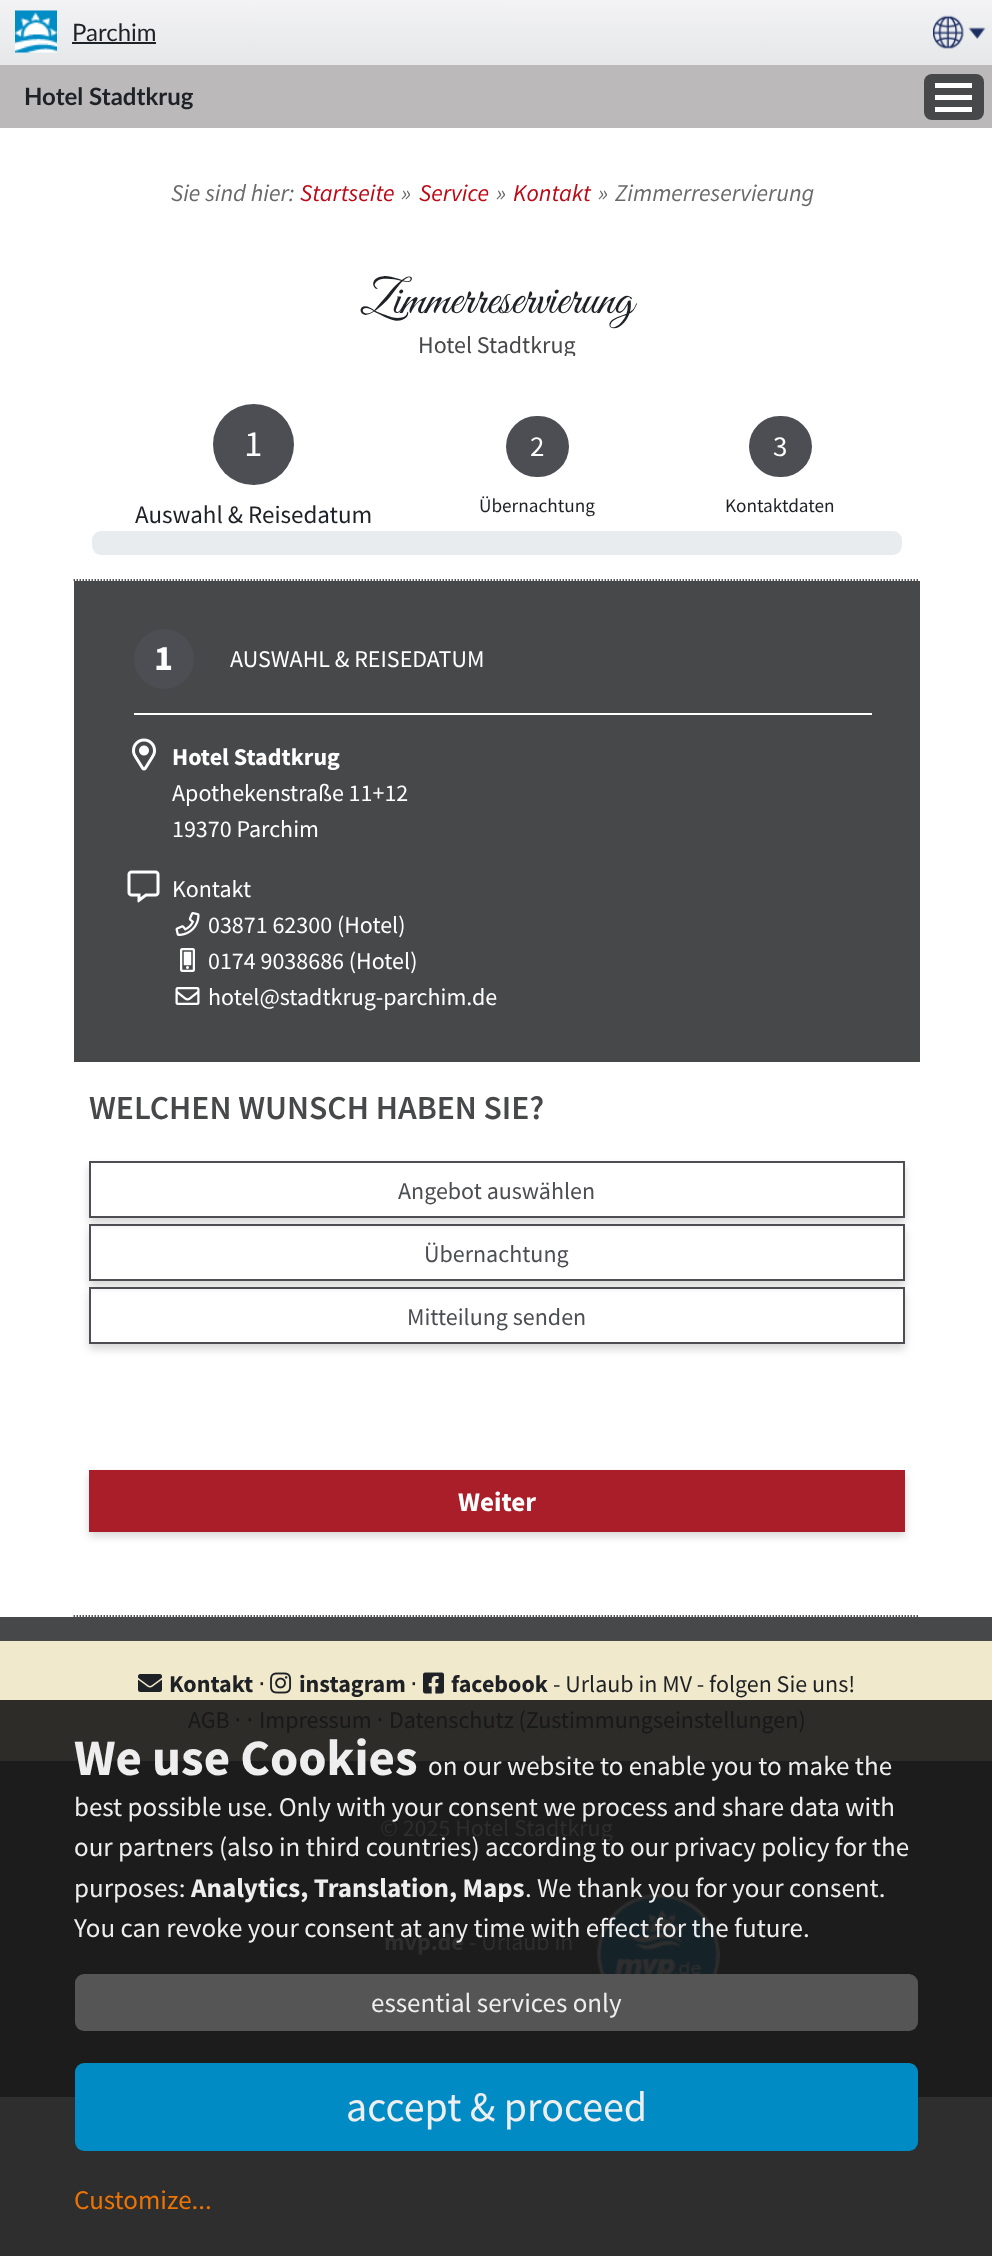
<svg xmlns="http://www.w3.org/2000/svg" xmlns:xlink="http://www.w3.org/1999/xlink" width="992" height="2256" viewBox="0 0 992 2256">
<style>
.cls-1{font:24px Lato;fill:#1e2126}
.cls-2{font:bold 24px Lato;fill:#1e2126}
.cls-3{font:italic 24px Source Sans Pro;fill:#6a6a6b}
.cls-4{font:italic 24px Source Sans Pro;fill:#bc0915}
.cls-5{font:48px Great Vibes;fill:#1e2126}
.cls-6{font:24px Source Sans Pro;fill:#47484a}
.cls-7{font:37px Source Sans Pro;fill:#ffffff}
.cls-8{font:25px Source Sans Pro;fill:#1e2126}
.cls-9{font:29px Source Sans Pro;fill:#ffffff}
.cls-10{font:19.25px Source Sans Pro;fill:#1e2126}
.cls-11{font:bold 36px Source Sans Pro;fill:#ffffff}
.cls-12{font:24px Source Sans Pro;fill:#ffffff}
.cls-13{font:bold 24px Source Sans Pro;fill:#ffffff}
.cls-14{font:600 33.6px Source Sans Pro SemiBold;fill:#47484a}
.cls-15{font:24px Source Sans Pro;fill:#4c4e54}
.cls-16{font:bold 27px Source Sans Pro;fill:#ffffff}
.cls-17{font:bold 24px Source Sans Pro;fill:#1e2126}
.cls-18{font:24px DejaVu Sans;fill:#1e2126}
.cls-19{font:24px Source Sans Pro;fill:#1e2126}
.cls-20{font:24px Source Sans Pro;fill:#181819}
.cls-21{font:24px DejaVu Sans;fill:#181819}
.cls-22{font:24px Source Sans Pro;fill:#2e2e2e}
.cls-23{font:bold 24px Source Sans Pro;fill:#2e2e2e}
.cls-24{font:bold 51px Source Sans Pro;fill:#eeeeee}
.cls-25{font:27px Source Sans Pro;fill:#eeeeee}
.cls-26{font:bold 27px Source Sans Pro;fill:#eeeeee}
.cls-27{font:42px Source Sans Pro;fill:#eeeeee}
.cls-28{font:27px Source Sans Pro;fill:#ec7404}
</style>
<defs>
<linearGradient id="g1" gradientUnits="userSpaceOnUse" x1="496" y1="0" x2="497" y2="2097"><stop offset="0" stop-color="#ffffff"/><stop offset="0.29" stop-color="#ffffff"/><stop offset="1" stop-color="#eaeaea"/></linearGradient>
<linearGradient id="g2" gradientUnits="userSpaceOnUse" x1="497" y1="0" x2="497" y2="65"><stop offset="0" stop-color="#f3f3f5"/><stop offset="1" stop-color="#e5e7e9"/></linearGradient>
<clipPath id="clip1"><path d="M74 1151H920V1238H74ZM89 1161H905V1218H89Z" clip-rule="evenodd"/></clipPath>
<clipPath id="clip2"><path d="M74 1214H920V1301H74ZM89 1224H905V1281H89Z" clip-rule="evenodd"/></clipPath>
<clipPath id="clip3"><path d="M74 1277H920V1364H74ZM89 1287H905V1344H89Z" clip-rule="evenodd"/></clipPath>
<clipPath id="clip4"><rect x="24" y="275" width="945" height="81"/></clipPath>
</defs>
<rect width="100%" height="100%" fill="#2e2e2e"/>
<rect fill="url(#g1)" x="0" y="128" width="992" height="123"/>
<rect fill="#bbb9ba" x="0" y="65" width="992" height="63"/>
<rect fill="url(#g2)" x="0" y="0" width="992" height="65"/>
<image xlink:href="image0.png" x="15" y="10" width="42" height="43"/>
<rect fill="#1e2126" x="72" y="42" width="84" height="2"/>
<image xlink:href="image1.png" x="933" y="15" width="53" height="34"/>
<rect fill="#47484a" x="924" y="74" width="60" height="46" rx="8"/>
<rect fill="#ffffff" x="935" y="95" width="37" height="5"/>
<rect fill="#ffffff" x="935" y="83" width="37" height="5"/>
<rect fill="#ffffff" x="935" y="107" width="37" height="5"/>
<rect fill="#ffffff" x="0" y="251" width="992" height="1366"/>
<circle fill="#4c4e54" cx="253.5" cy="444.5" r="40.5"/>
<rect fill="#4c4e54" x="506" y="416" width="63" height="61" rx="30.5"/>
<rect fill="#4c4e54" x="749" y="416" width="63" height="61" rx="30.5"/>
<rect fill="#e9ecef" x="92" y="531" width="810" height="24" rx="9"/>
<path fill="none" stroke="#1e2126" stroke-width="1.5" stroke-dasharray="1.5 1.5" d="M73.5 580H919.5"/>
<path fill="none" stroke="#1e2126" stroke-width="1.5" stroke-dasharray="1.5 1.5" d="M73.5 1616H919.5"/>
<rect fill="#47484a" x="74" y="581" width="846" height="481"/>
<rect fill="#ffffff" x="134" y="713" width="738" height="2"/>
<circle fill="#4c4e54" cx="164" cy="659" r="30"/>
<image xlink:href="image2.png" x="132" y="738" width="24" height="33"/>
<image xlink:href="image3.png" x="127" y="870" width="33" height="33"/>
<image xlink:href="image4.png" x="175" y="912" width="25" height="24"/>
<image xlink:href="image5.png" x="180" y="948" width="15" height="24"/>
<image xlink:href="image6.png" x="175" y="987" width="25" height="18"/>
<g clip-path="url(#clip1)">
<rect fill="#000000" fill-opacity="0.16" filter="blur(4.5px)" x="89" y="1166" width="816" height="57"/>
</g>
<rect fill="none" stroke="#4c4e54" stroke-width="2" x="90" y="1162" width="814" height="55"/>
<g clip-path="url(#clip2)">
<rect fill="#000000" fill-opacity="0.16" filter="blur(4.5px)" x="89" y="1229" width="816" height="57"/>
</g>
<rect fill="none" stroke="#4c4e54" stroke-width="2" x="90" y="1225" width="814" height="55"/>
<g clip-path="url(#clip3)">
<rect fill="#000000" fill-opacity="0.16" filter="blur(4.5px)" x="89" y="1292" width="816" height="57"/>
</g>
<rect fill="none" stroke="#4c4e54" stroke-width="2" x="90" y="1288" width="814" height="55"/>
<rect fill="#000000" fill-opacity="0.16" filter="blur(4.5px)" x="89" y="1475" width="816" height="61"/>
<rect fill="#a91e28" x="89" y="1470" width="816" height="62"/>
<rect fill="#47484a" x="0" y="1617" width="992" height="24"/>
<rect fill="#1c1c1c" x="0" y="1761" width="992" height="336"/>
<rect fill="#f1e9cc" x="0" y="1641" width="992" height="59"/>
<rect fill="#2d2c29" x="0" y="1700" width="992" height="61"/>
<image xlink:href="image7.png" x="138" y="1674" width="24" height="18"/>
<image xlink:href="image8.png" x="270" y="1672" width="22" height="22"/>
<image xlink:href="image9.png" x="423" y="1672" width="21" height="22"/>
<image xlink:href="image10.png" x="597" y="1893" width="123" height="81"/>
<rect fill="#555555" x="75" y="1974" width="843" height="57" rx="9"/>
<rect fill="#008bc5" x="75" y="2063" width="843" height="88" rx="9"/>
<text class="cls-1" x="72" y="41">Parchim</text>
<text class="cls-2" x="24" y="105">Hotel Stadtkrug</text>
<text class="cls-3" x="171" y="201">Sie sind hier:</text>
<text class="cls-4" x="300" y="201">Startseite</text>
<text class="cls-3" x="401" y="201">»</text>
<text class="cls-4" x="419" y="201">Service</text>
<text class="cls-3" x="496" y="201">»</text>
<text class="cls-4" x="513" y="201">Kontakt</text>
<text class="cls-3" x="598" y="201">»</text>
<text class="cls-3" x="615" y="201">Zimmerreservierung</text>
<text class="cls-5" x="360" y="313">Zimmerreservierung</text>
<g clip-path="url(#clip4)">
<text class="cls-6" x="418" y="353">Hotel Stadtkrug</text>
</g>
<text class="cls-7" x="244" y="456">1</text>
<text class="cls-8" x="135" y="523">Auswahl &amp; Reisedatum</text>
<text class="cls-9" x="530" y="456">2</text>
<text class="cls-10" x="479" y="512">Übernachtung</text>
<text class="cls-9" x="773" y="456">3</text>
<text class="cls-10" x="725" y="512">Kontaktdaten</text>
<text class="cls-11" x="154" y="670">1</text>
<text class="cls-12" x="230" y="667">AUSWAHL &amp; REISEDATUM</text>
<text class="cls-13" x="172" y="765">Hotel Stadtkrug</text>
<text class="cls-12"><tspan x="172" y="801">Apothekenstraße 11+12</tspan><tspan x="172" y="837">19370 Parchim</tspan></text>
<text class="cls-12" x="172" y="897">Kontakt</text>
<text class="cls-12"><tspan x="208" y="933">03871 62300 (Hotel)</tspan><tspan x="208" y="969">0174 9038686 (Hotel)</tspan><tspan x="208" y="1005">hotel@stadtkrug-parchim.de</tspan></text>
<text class="cls-14" x="89" y="1119">WELCHEN WUNSCH HABEN SIE?</text>
<text class="cls-15" x="398" y="1199">Angebot auswählen</text>
<text class="cls-15" x="424" y="1262">Übernachtung</text>
<text class="cls-15" x="407" y="1325">Mitteilung senden</text>
<text class="cls-16" x="458" y="1511">Weiter</text>
<text class="cls-17" x="169" y="1692">Kontakt</text>
<text class="cls-18" x="258" y="1692">⋅</text>
<text class="cls-17" x="299" y="1692">instagram</text>
<text class="cls-18" x="410" y="1692">⋅</text>
<text class="cls-17" x="451" y="1692">facebook</text>
<text class="cls-19" x="553" y="1692">- Urlaub in MV - folgen Sie uns!</text>
<text class="cls-20" x="188" y="1728">AGB</text>
<text class="cls-21" x="234" y="1728">⋅</text>
<text class="cls-21" x="246" y="1728">⋅</text>
<text class="cls-20" x="259" y="1728">Impressum</text>
<text class="cls-21" x="376" y="1728">⋅</text>
<text class="cls-20" x="389" y="1728">Datenschutz (Zustimmungseinstellungen)</text>
<text class="cls-22" x="380" y="1836">© 2025 Hotel Stadtkrug</text>
<text class="cls-23" x="384" y="1950">mvp.de</text>
<text class="cls-22" x="469" y="1950">- Urlaub in</text>
<text class="cls-24" x="74" y="1775">We use Cookies</text>
<text class="cls-25" x="428" y="1775">on our website to enable you to make the</text>
<text class="cls-25"><tspan x="74" y="1816">best possible use. Only with your consent we process and share data with</tspan><tspan x="74" y="1856">our partners (also in third countries) according to our privacy policy for the</tspan><tspan x="74" y="1897">purposes:</tspan></text>
<text class="cls-26" x="191" y="1897">Analytics, Translation, Maps</text>
<text class="cls-25" x="525" y="1897">. We thank you for your consent.</text>
<text class="cls-25" x="74" y="1937">You can revoke your consent at any time with effect for the future.</text>
<text class="cls-25" x="371" y="2012">essential services only</text>
<text class="cls-27" x="346" y="2121">accept &amp; proceed</text>
<text class="cls-28" x="74" y="2209">Customize...</text>
</svg>
